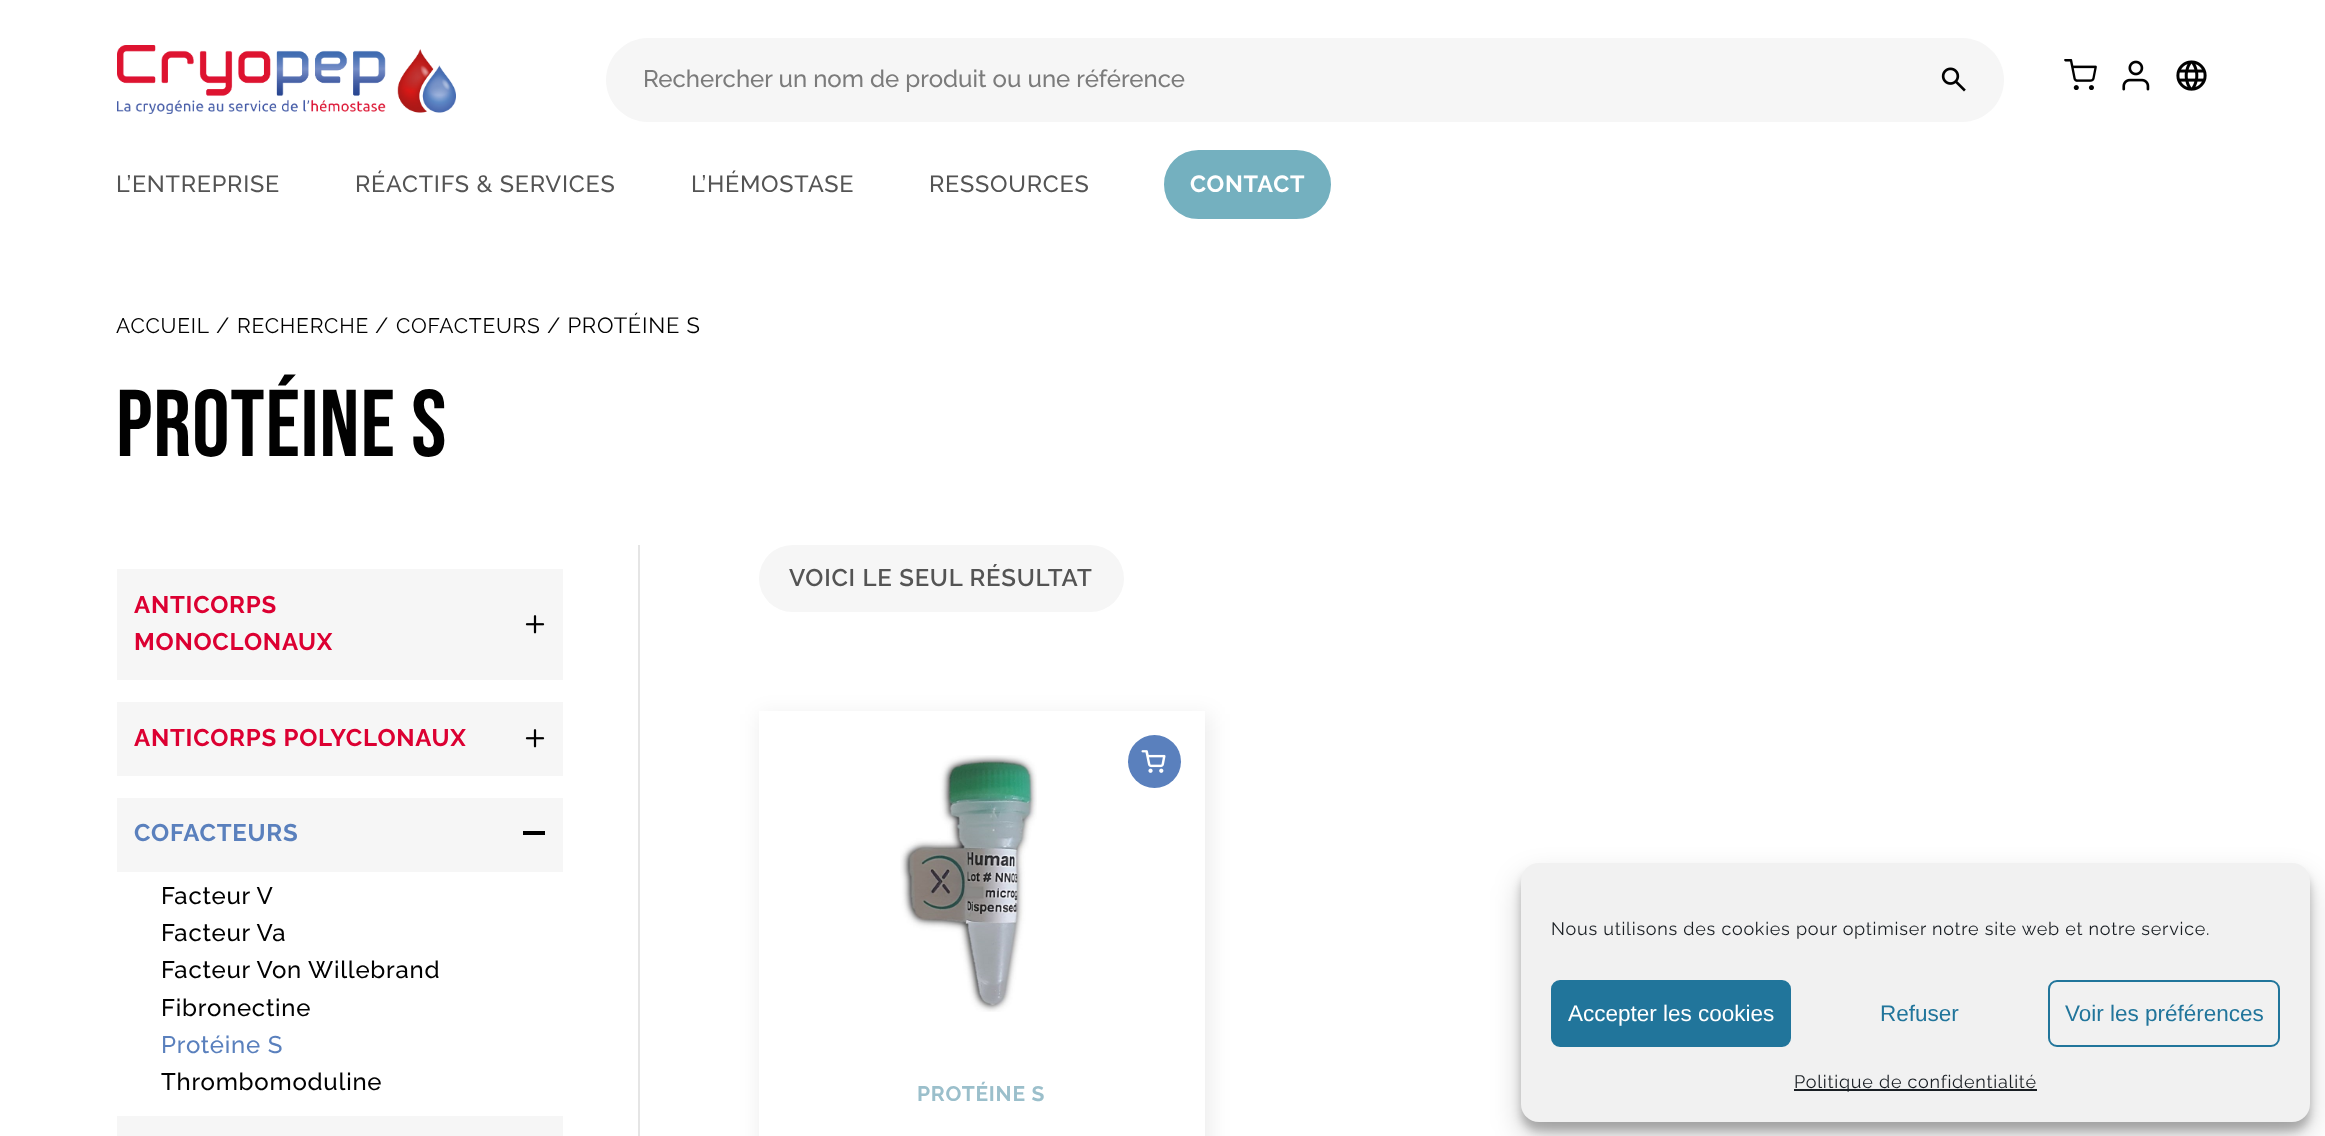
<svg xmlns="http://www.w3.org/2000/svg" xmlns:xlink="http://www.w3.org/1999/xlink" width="2325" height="1136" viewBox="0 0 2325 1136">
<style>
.cls-1{font:500 24px Raleway;fill:#7b7b7b}
.cls-2{font:500 23.4px Raleway;letter-spacing:0.75px;fill:#545454}
.cls-3{font:bold 23.4px Raleway;letter-spacing:0.75px;fill:#ffffff}
.cls-4{font:21px Raleway;letter-spacing:0.75px;fill:#010101}
.cls-5{font:22px Raleway;letter-spacing:0.75px;fill:#010101}
.cls-6{font:94.5px Bebas Neue;letter-spacing:0.75px;fill:#010101}
.cls-7{font:bold 24px Raleway;letter-spacing:0.75px;fill:#dc0032}
.cls-8{font:bold 24px Raleway;letter-spacing:0.75px;fill:#5a80bd}
.cls-9{font:500 24px Raleway;letter-spacing:0.75px;fill:#010101}
.cls-10{font:500 24px Raleway;letter-spacing:0.75px;fill:#5a80bd}
.cls-11{font:600 24px Raleway;letter-spacing:0.75px;fill:#545454}
.cls-12{font:bold 21px Raleway;letter-spacing:0.75px;fill:#9bbfcb}
.cls-13{font:18px Raleway;letter-spacing:0.75px;fill:#191e23}
.cls-14{font:22.5px Liberation Sans;fill:#ffffff}
.cls-15{font:22.5px Liberation Sans;fill:#21759b}
</style>
<rect width="100%" height="100%" fill="#ffffff"/>
<image xlink:href="image0.png" x="117" y="45" width="339" height="69"/>
<path fill="#f6f6f6" d="M648 38H1904V122H648C625 122 606 103 606 80C606 57 625 38 648 38Z"/>
<path fill="#f6f6f6" d="M1904 38H1962C1985 38 2004 57 2004 80C2004 103 1985 122 1962 122H1904Z"/>
<image xlink:href="image1.png" x="1941" y="67" width="25" height="25"/>
<image xlink:href="image2.png" x="2064" y="59" width="33" height="31"/>
<image xlink:href="image3.png" x="2122" y="60" width="28" height="31"/>
<image xlink:href="image4.png" x="2176" y="60" width="31" height="31"/>
<rect fill="#74b0bf" stroke="#74b0bf" stroke-width="2" x="1165" y="151" width="165" height="67" rx="33.5"/>
<rect fill="#e5e5e5" x="638" y="545" width="2" height="591"/>
<rect fill="#f6f6f6" x="117" y="569" width="446" height="111"/>
<image xlink:href="image5.png" x="525" y="615" width="20" height="19"/>
<rect fill="#f6f6f6" x="117" y="702" width="446" height="74"/>
<image xlink:href="image5.png" x="525" y="729" width="20" height="19"/>
<rect fill="#f6f6f6" x="117" y="798" width="446" height="74"/>
<rect fill="#000000" x="523" y="831" width="22" height="4"/>
<rect fill="#f6f6f6" x="117" y="1116" width="446" height="20"/>
<rect fill="#f6f6f6" x="759" y="545" width="365" height="67" rx="33.5"/>
<rect fill="#000000" fill-opacity="0.07" filter="blur(10.5px)" x="759" y="714" width="452" height="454"/>
<rect fill="#ffffff" x="759" y="711" width="446" height="425"/>
<circle fill="#5a80bd" cx="1154.5" cy="761.5" r="26.5"/>
<image xlink:href="image6.png" x="1141" y="750" width="25" height="23"/>
<image xlink:href="image7.png" x="900" y="755" width="137" height="257"/>
<rect fill="#000000" fill-opacity="0.23" filter="blur(4.5px)" x="1521" y="872" width="789" height="259" rx="18"/>
<rect fill="#000000" fill-opacity="0.19" filter="blur(15px)" x="1521" y="878" width="789" height="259" rx="18"/>
<rect fill="#f1f1f1" x="1521" y="863" width="789" height="259" rx="18"/>
<rect fill="#21759b" stroke="#21759b" stroke-width="2" x="1552" y="981" width="238" height="65" rx="8"/>
<rect fill="none" stroke="#21759b" stroke-width="2" x="2049" y="981" width="230" height="65" rx="8"/>
<rect fill="#191e23" x="1794" y="1089" width="243" height="2"/>
<text class="cls-1" x="643" y="87">Rechercher un nom de produit ou une référence</text>
<text class="cls-2" x="116" y="192">L’ENTREPRISE</text>
<text class="cls-2" x="355" y="192">RÉACTIFS &amp; SERVICES</text>
<text class="cls-2" x="691" y="192">L’HÉMOSTASE</text>
<text class="cls-2" x="929" y="192">RESSOURCES</text>
<text class="cls-3" x="1190" y="192">CONTACT</text>
<text class="cls-4" x="116" y="333">ACCUEIL</text>
<text class="cls-5" x="216" y="333">/</text>
<text class="cls-4" x="237" y="333">RECHERCHE</text>
<text class="cls-5" x="375" y="333">/</text>
<text class="cls-4" x="396" y="333">COFACTEURS</text>
<text class="cls-5" x="547" y="333">/ PROTÉINE S</text>
<text class="cls-6" x="116" y="456">Protéine S</text>
<text class="cls-7"><tspan x="134" y="613">ANTICORPS</tspan><tspan x="134" y="650">MONOCLONAUX</tspan></text>
<text class="cls-7" x="134" y="746">ANTICORPS POLYCLONAUX</text>
<text class="cls-8" x="134" y="841">COFACTEURS</text>
<text class="cls-9"><tspan x="161" y="904">Facteur V</tspan><tspan x="161" y="941">Facteur Va</tspan><tspan x="161" y="978">Facteur Von Willebrand</tspan><tspan x="161" y="1016">Fibronectine</tspan></text>
<text class="cls-10" x="161" y="1053">Protéine S</text>
<text class="cls-9" x="161" y="1090">Thrombomoduline</text>
<text class="cls-11" x="789" y="586">VOICI LE SEUL RÉSULTAT</text>
<text class="cls-12" x="917" y="1101">PROTÉINE S</text>
<text class="cls-13" x="1551" y="935">Nous utilisons des cookies pour optimiser notre site web et notre service.</text>
<text class="cls-14" x="1568" y="1021">Accepter les cookies</text>
<text class="cls-15" x="1880" y="1021">Refuser</text>
<text class="cls-15" x="2065" y="1021">Voir les préférences</text>
<text class="cls-13" x="1794" y="1088">Politique de confidentialité</text>
</svg>
